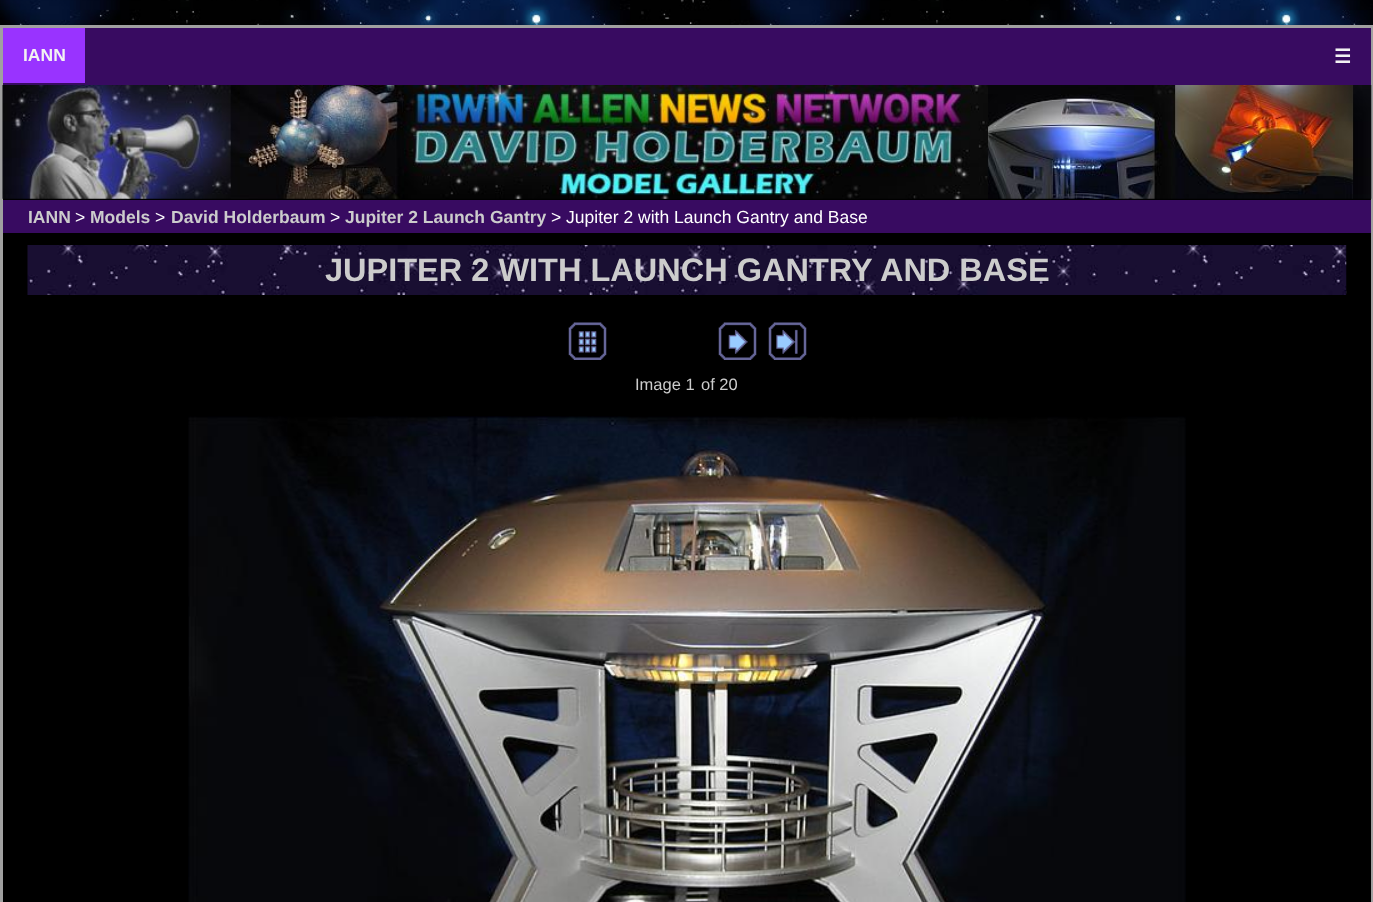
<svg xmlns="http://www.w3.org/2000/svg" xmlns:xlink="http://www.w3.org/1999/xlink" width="1373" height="902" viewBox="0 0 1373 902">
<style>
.cls-1{font:bold 17.5px Liberation Sans;fill:#f2f2f2}
.cls-2{font:bold 19px DejaVu Sans;fill:#f2f2f2}
.cls-3{font:bold 17.5px Liberation Sans;fill:#cccccc}
.cls-4{font:17.5px Liberation Sans;fill:#ffffff}
.cls-5{font:bold 32.5px Liberation Sans;fill:#cccccc}
.cls-6{font:16.5px Liberation Sans;fill:#cccccc}
</style>
<rect width="100%" height="100%" fill="#ffffff"/>
<image xlink:href="image0.png" x="0" y="0" width="1373" height="25"/>
<rect fill="#000000" x="3" y="198" width="1368" height="704"/>
<rect fill="none" stroke="#a0a0a0" stroke-width="3" x="1.5" y="26.5" width="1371" height="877"/>
<rect fill="#380b61" x="3" y="28" width="1368" height="57"/>
<rect fill="#9933ff" x="3" y="28" width="82" height="55"/>
<image xlink:href="image1.png" x="2" y="85" width="1370" height="114"/>
<rect fill="#380b61" x="3" y="200" width="1368" height="33"/>
<image xlink:href="image2.png" x="27" y="245" width="1320" height="50"/>
<image xlink:href="image3.png" x="568" y="322" width="39" height="38"/>
<image xlink:href="image4.png" x="718" y="322" width="39" height="38"/>
<image xlink:href="image5.png" x="768" y="322" width="39" height="38"/>
<image xlink:href="image6.png" x="188" y="416" width="998" height="486"/>
<text class="cls-1" x="23" y="61">IANN</text>
<text class="cls-2" x="1334" y="63">☰</text>
<text class="cls-3" x="28" y="223">IANN</text>
<text class="cls-4" x="75" y="223">&gt;</text>
<text class="cls-3" x="90" y="223">Models</text>
<text class="cls-4" x="155" y="223">&gt;</text>
<text class="cls-3" x="171" y="223">David Holderbaum</text>
<text class="cls-4" x="330" y="223">&gt;</text>
<text class="cls-3" x="345" y="223">Jupiter 2 Launch Gantry</text>
<text class="cls-4" x="551" y="223">&gt; Jupiter 2 with Launch Gantry and Base</text>
<text class="cls-5" x="325" y="281">JUPITER 2 WITH LAUNCH GANTRY AND BASE</text>
<text class="cls-6" x="635" y="390">Image 1</text>
<text class="cls-6" x="701" y="390">of 20</text>
</svg>
